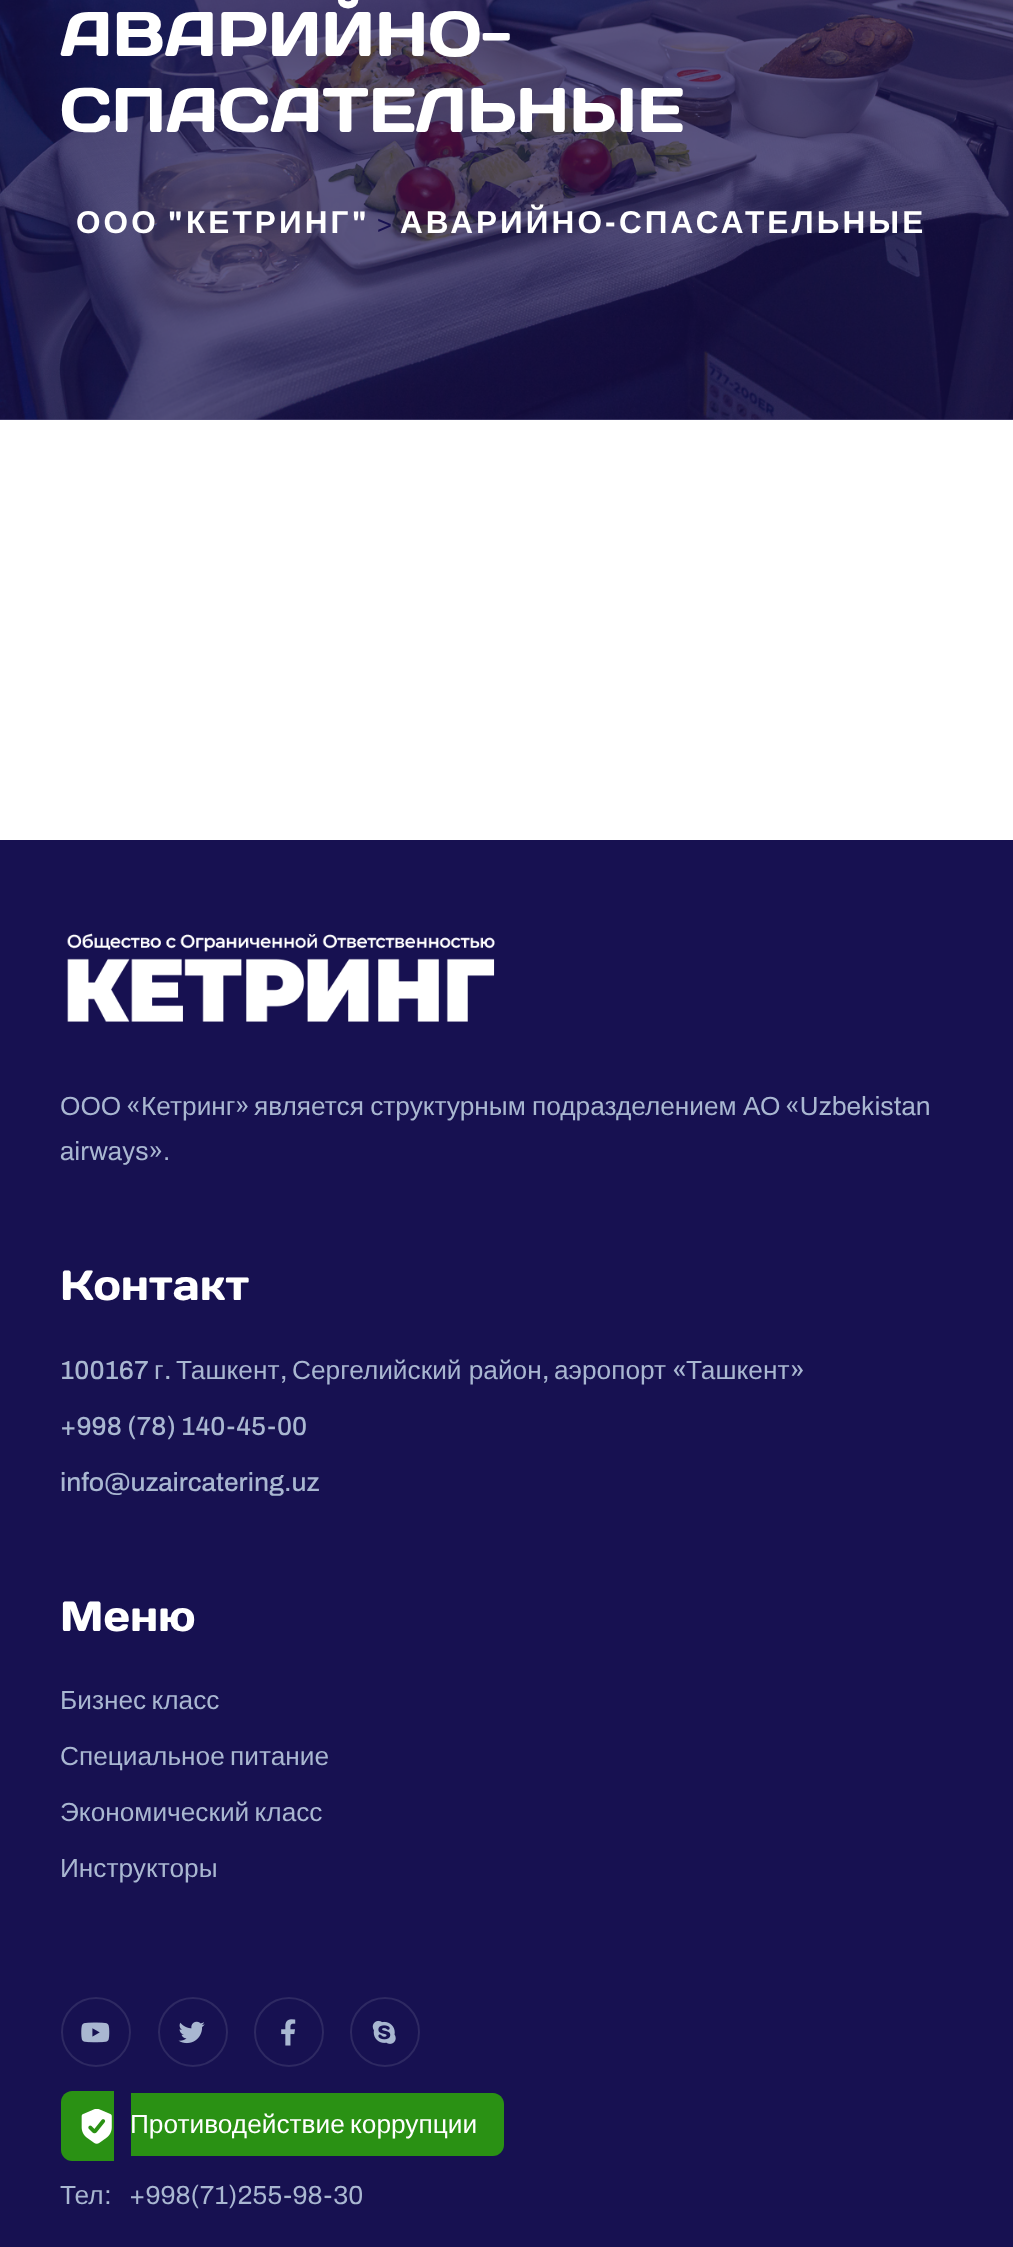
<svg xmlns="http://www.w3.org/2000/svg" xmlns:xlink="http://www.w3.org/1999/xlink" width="1013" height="2247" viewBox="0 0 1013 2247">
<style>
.cls-1{font:63px Days One;fill:#ffffff}
.cls-2{font:bold 31.5px Liberation Sans;letter-spacing:3.1px;fill:#ffffff}
.cls-3{font:bold 31.5px Archivo;letter-spacing:3.1px;fill:#ffffff}
.cls-4{font:26.25px Archivo;fill:#171151}
.cls-5{font:26.25px Liberation Sans;fill:#a9b7d1}
.cls-6{font:26.25px Archivo;fill:#a9b7d1}
.cls-7{font:42px Days One;fill:#ffffff}
.cls-8{font:500 26.25px Archivo;fill:#a9b7d1}
.cls-9{font:26.25px Liberation Sans;fill:#ffffff}
</style>
<rect width="100%" height="100%" fill="#ffffff"/>
<rect fill="#5d5885" x="0" y="419" width="1013" height="1"/>
<image xlink:href="image0.png" x="0" y="0" width="1013" height="420"/>
<rect fill="#171151" x="0" y="840" width="1013" height="1407"/>
<image xlink:href="image1.png" x="67" y="933" width="428" height="89"/>
<circle fill="none" stroke="#2e2962" stroke-width="2" cx="96" cy="2032" r="34"/>
<image xlink:href="image2.png" x="81" y="2022" width="29" height="21"/>
<circle fill="none" stroke="#2e2962" stroke-width="2" cx="193" cy="2032" r="34"/>
<image xlink:href="image3.png" x="178" y="2021" width="27" height="23"/>
<circle fill="none" stroke="#2e2962" stroke-width="2" cx="289" cy="2032" r="34"/>
<image xlink:href="image4.png" x="281" y="2019" width="15" height="27"/>
<circle fill="none" stroke="#2e2962" stroke-width="2" cx="385" cy="2032" r="34"/>
<image xlink:href="image5.png" x="372" y="2020" width="24" height="24"/>
<path fill="#2a9114" d="M72 2091H114V2161H72C66 2161 61 2156 61 2150V2102C61 2096 66 2091 72 2091Z"/>
<image xlink:href="image6.png" x="81" y="2109" width="31" height="35"/>
<path fill="#2a9114" d="M131 2093H493C499 2093 504 2098 504 2104V2145C504 2151 499 2156 493 2156H131Z"/>
<text class="cls-1"><tspan x="60" y="56">АВАРИЙНО-</tspan><tspan x="60" y="132">СПАСАТЕЛЬНЫЕ</tspan></text>
<text class="cls-2" x="76" y="233">ООО</text>
<text class="cls-3" x="168" y="233">"</text>
<text class="cls-2" x="186" y="233">КЕТРИНГ</text>
<text class="cls-3" x="352" y="233">"</text>
<text class="cls-4" x="376" y="232">&gt;</text>
<text class="cls-2" x="400" y="233">АВАРИЙНО</text>
<text class="cls-3" x="605" y="233">-</text>
<text class="cls-2" x="619" y="233">СПАСАТЕЛЬНЫЕ</text>
<text class="cls-5" x="60" y="1115">ООО</text>
<text class="cls-6" x="126" y="1115">«</text>
<text class="cls-5" x="141" y="1115">Кетринг</text>
<text class="cls-6" x="235" y="1115">»</text>
<text class="cls-5" x="254" y="1115" word-spacing="-1">является структурным подразделением АО</text>
<text class="cls-6" x="785" y="1115">«Uzbekistan</text>
<text class="cls-6" x="60" y="1160">airways».</text>
<text class="cls-7" x="60" y="1300">Контакт</text>
<text class="cls-8" x="60" y="1379">100167</text>
<text class="cls-5" x="154" y="1379">г</text>
<text class="cls-5" x="176" y="1379">Ташкент</text>
<text class="cls-5" x="292" y="1379">Сергелийский район</text>
<text class="cls-5" x="554" y="1379">аэропорт</text>
<text class="cls-8" x="672" y="1379">«</text>
<text class="cls-5" x="686" y="1379">Ташкент</text>
<text class="cls-8" x="790" y="1379">»</text>
<text class="cls-8" x="164" y="1379">.</text>
<text class="cls-8" x="280" y="1379">,</text>
<text class="cls-8" x="542" y="1379">,</text>
<text class="cls-8" x="60" y="1435">+998 (78) 140-45-00</text>
<text class="cls-8" x="60" y="1491">info@uzaircatering.uz</text>
<text class="cls-7" x="60" y="1631">Меню</text>
<text class="cls-5" x="60" y="1709" word-spacing="-2">Бизнес класс</text>
<text class="cls-5" x="60" y="1765" word-spacing="-2">Специальное питание</text>
<text class="cls-5" x="60" y="1821" word-spacing="-2">Экономический класс</text>
<text class="cls-5" x="60" y="1877">Инструкторы</text>
<text class="cls-9" x="130" y="2133" word-spacing="-2">Противодействие коррупции</text>
<text class="cls-5" x="60" y="2204">Тел</text>
<text class="cls-6" x="104" y="2204">:</text>
<text class="cls-6" x="129" y="2204">+998(71)255-98-30</text>
</svg>
